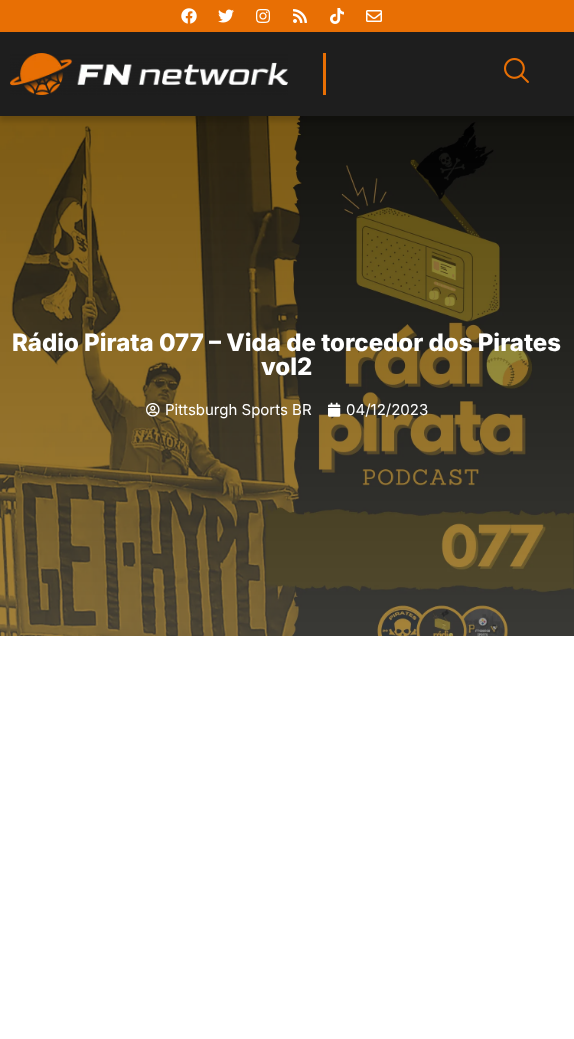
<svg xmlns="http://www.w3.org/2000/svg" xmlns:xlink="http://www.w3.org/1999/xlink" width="574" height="1039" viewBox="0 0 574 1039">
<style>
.cls-1{font:800 24px Inter;fill:#ffffff}
.cls-2{font:15px Inter;fill:#ffffff}
</style>
<rect width="100%" height="100%" fill="#ffffff"/>
<rect fill="#e86f04" x="0" y="0" width="574" height="32"/>
<image xlink:href="image0.png" x="181" y="8" width="16" height="16"/>
<image xlink:href="image1.png" x="218" y="9" width="16" height="14"/>
<image xlink:href="image2.png" x="256" y="9" width="14" height="14"/>
<image xlink:href="image3.png" x="293" y="9" width="14" height="14"/>
<image xlink:href="image4.png" x="330" y="8" width="14" height="16"/>
<image xlink:href="image5.png" x="366" y="10" width="16" height="12"/>
<image xlink:href="image8.png" x="0" y="116" width="574" height="520"/>
<rect fill="#000000" fill-opacity="0.15" filter="blur(2.5px)" x="0" y="37" width="574" height="84"/>
<rect fill="#1e1e1e" x="0" y="32" width="574" height="84"/>
<rect fill="#e86f04" x="323" y="53" width="3" height="42"/>
<image xlink:href="image6.png" x="10" y="53" width="278" height="42"/>
<image xlink:href="image7.png" x="504" y="58" width="25" height="25"/>
<image xlink:href="image9.png" x="146" y="403" width="14" height="14"/>
<image xlink:href="image10.png" x="328" y="402" width="13" height="15"/>
<text class="cls-1" x="12" y="351">Rádio Pirata 077 – Vida de torcedor dos Pirates</text>
<text class="cls-1" x="261" y="375">vol2</text>
<text class="cls-2" x="165" y="415">Pittsburgh Sports BR</text>
<text class="cls-2" x="346" y="415">04/12/2023</text>
</svg>
